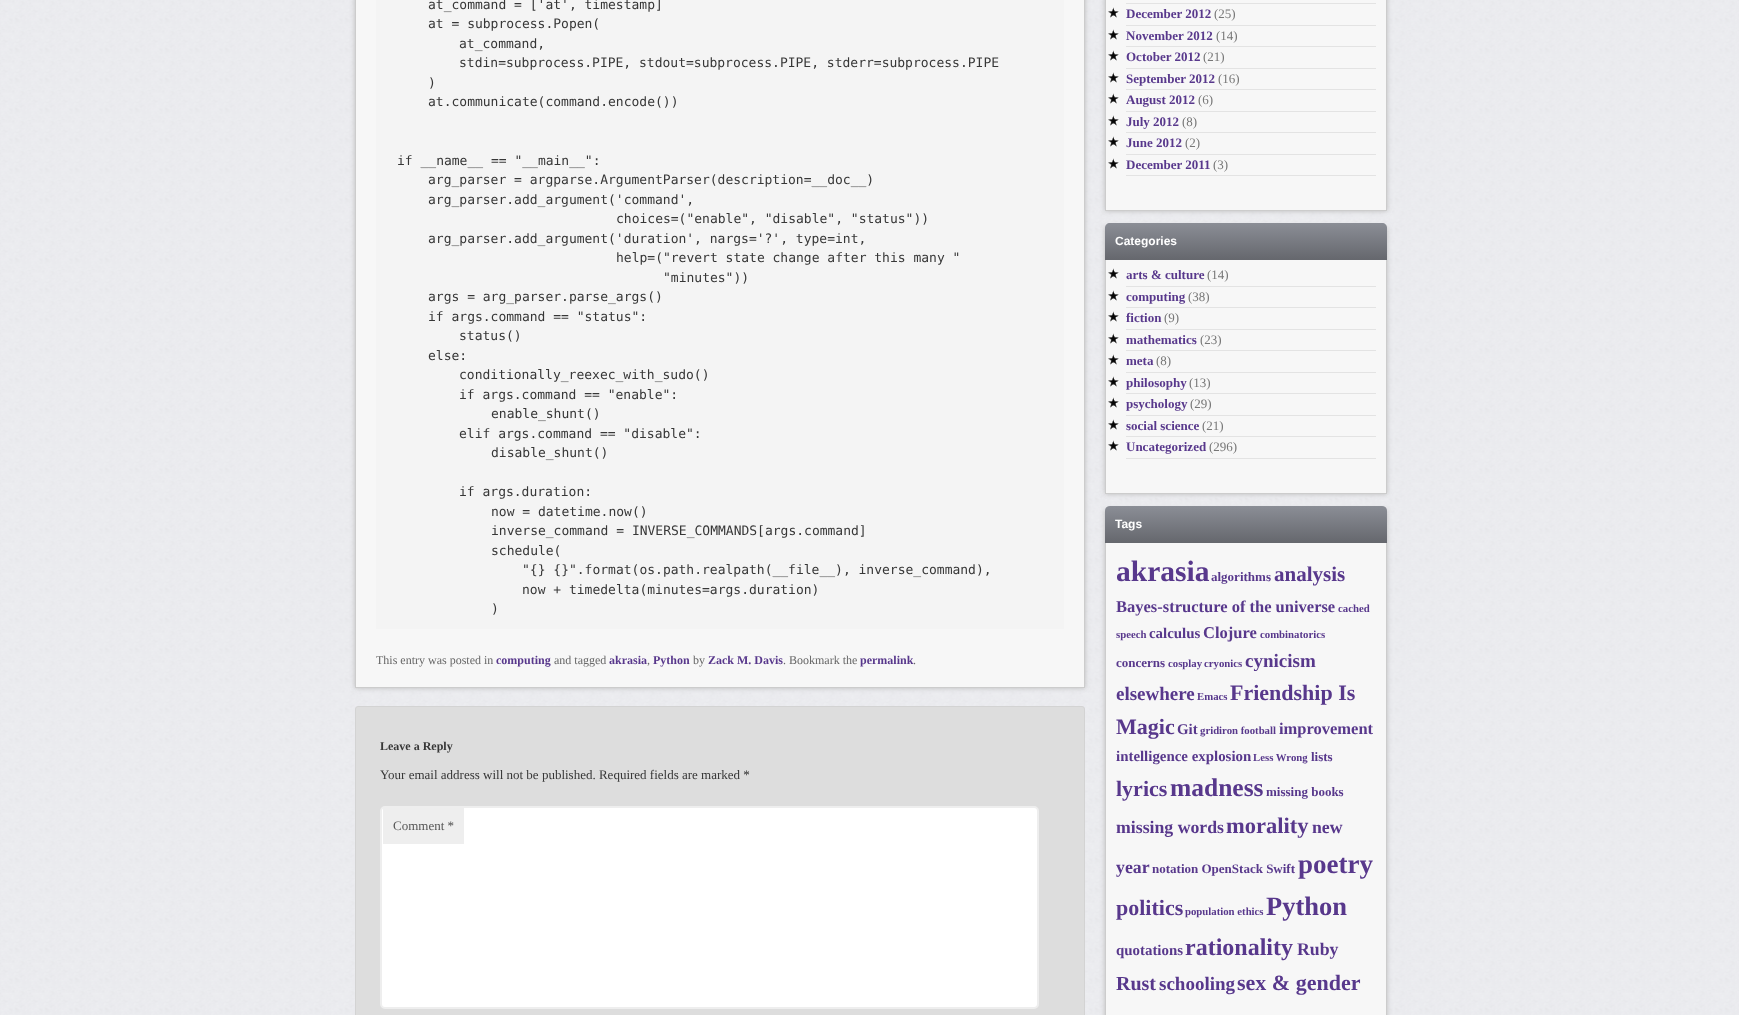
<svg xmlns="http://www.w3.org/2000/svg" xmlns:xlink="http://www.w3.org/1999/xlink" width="1739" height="1015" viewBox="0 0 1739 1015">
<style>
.cls-1{font:13px DejaVu Sans Mono;fill:#373737}
.cls-2{font:12px Liberation Serif;fill:#666666}
.cls-3{font:bold 12px Liberation Serif;fill:#58388c}
.cls-4{font:bold 12px Liberation Serif;fill:#373737}
.cls-5{font:13px Liberation Serif;fill:#373737}
.cls-6{font:13px Liberation Serif;fill:#555555}
.cls-7{font:bold 13px Liberation Serif;fill:#58388c}
.cls-8{font:13px Liberation Serif;fill:#777777}
.cls-9{font:bold 12px Liberation Sans;fill:#ffffff}
.cls-10{font:bold 29.5px Liberation Serif;fill:#58388c}
.cls-11{font:bold 21px Liberation Serif;fill:#58388c}
.cls-12{font:bold 16.5px Liberation Serif;fill:#58388c}
.cls-13{font:bold 10.75px Liberation Serif;fill:#58388c}
.cls-14{font:bold 14.9px Liberation Serif;fill:#58388c}
.cls-15{font:bold 19px Liberation Serif;fill:#58388c}
.cls-16{font:bold 22px Liberation Serif;fill:#58388c}
.cls-17{font:bold 25.5px Liberation Serif;fill:#58388c}
.cls-18{font:bold 17.75px Liberation Serif;fill:#58388c}
.cls-19{font:bold 22.5px Liberation Serif;fill:#58388c}
.cls-20{font:bold 27px Liberation Serif;fill:#58388c}
.cls-21{font:bold 26.5px Liberation Serif;fill:#58388c}
.cls-22{font:bold 24px Liberation Serif;fill:#58388c}
.cls-23{font:bold 20px Liberation Serif;fill:#58388c}
</style>
<defs>
<linearGradient id="g1" gradientUnits="userSpaceOnUse" x1="1246" y1="223" x2="1246" y2="259"><stop offset="0" stop-color="#8b8e96"/><stop offset="1" stop-color="#66686e"/></linearGradient>
<linearGradient id="g2" gradientUnits="userSpaceOnUse" x1="1246" y1="506" x2="1246" y2="542"><stop offset="0" stop-color="#8b8e96"/><stop offset="1" stop-color="#66686e"/></linearGradient>
</defs>
<rect width="100%" height="100%" fill="#ffffff"/>
<image xlink:href="image0.png" x="0" y="0" width="1739" height="1015"/>
<rect fill="#bbbbbb" filter="blur(2.5px)" x="355" y="-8" width="730" height="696"/>
<rect fill="#f7f7f7" stroke="#cccccc" x="355.5" y="-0.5" width="729" height="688"/>
<rect fill="#f4f4f4" x="376" y="0" width="688" height="629"/>
<rect fill="#dddddd" stroke="#d3d3d3" x="355.5" y="706.5" width="729" height="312" rx="2.5"/>
<rect fill="#ffffff" stroke="#eeeeee" stroke-width="2" x="381" y="807" width="657" height="201" rx="4"/>
<rect fill="#eeeeee" x="383" y="808" width="81" height="36"/>
<rect fill="#bbbbbb" filter="blur(2.5px)" x="1105" y="-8" width="282" height="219"/>
<rect fill="#f7f7f7" stroke="#cccccc" x="1105.5" y="-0.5" width="281" height="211"/>
<rect fill="#e3e3e3" x="1126" y="3" width="250" height="1"/>
<rect fill="#e3e3e3" x="1126" y="25" width="250" height="1"/>
<image xlink:href="image1.png" x="1108" y="7" width="11" height="11"/>
<rect fill="#e3e3e3" x="1126" y="46" width="250" height="1"/>
<image xlink:href="image1.png" x="1108" y="29" width="11" height="11"/>
<rect fill="#e3e3e3" x="1126" y="68" width="250" height="1"/>
<image xlink:href="image1.png" x="1108" y="50" width="11" height="11"/>
<rect fill="#e3e3e3" x="1126" y="89" width="250" height="1"/>
<image xlink:href="image1.png" x="1108" y="72" width="11" height="11"/>
<rect fill="#e3e3e3" x="1126" y="111" width="250" height="1"/>
<image xlink:href="image1.png" x="1108" y="93" width="11" height="11"/>
<rect fill="#e3e3e3" x="1126" y="132" width="250" height="1"/>
<image xlink:href="image1.png" x="1108" y="115" width="11" height="11"/>
<rect fill="#e3e3e3" x="1126" y="154" width="250" height="1"/>
<image xlink:href="image1.png" x="1108" y="136" width="11" height="11"/>
<rect fill="#e3e3e3" x="1126" y="175" width="250" height="1"/>
<image xlink:href="image1.png" x="1108" y="158" width="11" height="11"/>
<rect fill="#bbbbbb" filter="blur(2.5px)" x="1105" y="227" width="282" height="267"/>
<rect fill="#f7f7f7" x="1106" y="260" width="280" height="233"/>
<rect fill="none" stroke="#cccccc" x="1105.5" y="227.5" width="281" height="266"/>
<path fill="url(#g1)" d="M1110 223H1382C1385 223 1387 225 1387 228V259H1105V228C1105 225 1107 223 1110 223Z"/>
<rect fill="#66686e" x="1105" y="259" width="282" height="1"/>
<rect fill="#e3e3e3" x="1126" y="286" width="250" height="1"/>
<image xlink:href="image1.png" x="1108" y="268" width="11" height="11"/>
<rect fill="#e3e3e3" x="1126" y="307" width="250" height="1"/>
<image xlink:href="image1.png" x="1108" y="290" width="11" height="11"/>
<rect fill="#e3e3e3" x="1126" y="329" width="250" height="1"/>
<image xlink:href="image1.png" x="1108" y="311" width="11" height="11"/>
<rect fill="#e3e3e3" x="1126" y="350" width="250" height="1"/>
<image xlink:href="image1.png" x="1108" y="333" width="11" height="11"/>
<rect fill="#e3e3e3" x="1126" y="372" width="250" height="1"/>
<image xlink:href="image1.png" x="1108" y="354" width="11" height="11"/>
<rect fill="#e3e3e3" x="1126" y="393" width="250" height="1"/>
<image xlink:href="image1.png" x="1108" y="376" width="11" height="11"/>
<rect fill="#e3e3e3" x="1126" y="415" width="250" height="1"/>
<image xlink:href="image1.png" x="1108" y="397" width="11" height="11"/>
<rect fill="#e3e3e3" x="1126" y="436" width="250" height="1"/>
<image xlink:href="image1.png" x="1108" y="419" width="11" height="11"/>
<rect fill="#e3e3e3" x="1126" y="458" width="250" height="1"/>
<image xlink:href="image1.png" x="1108" y="440" width="11" height="11"/>
<rect fill="#bbbbbb" filter="blur(2.5px)" x="1105" y="510" width="282" height="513"/>
<rect fill="#f7f7f7" x="1106" y="543" width="280" height="472"/>
<rect fill="none" stroke="#cccccc" x="1105.5" y="510.5" width="281" height="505"/>
<path fill="url(#g2)" d="M1110 506H1382C1385 506 1387 508 1387 511V542H1105V511C1105 508 1107 506 1110 506Z"/>
<rect fill="#66686e" x="1105" y="542" width="282" height="1"/>
<text class="cls-1"><tspan x="428" y="9">at_command = ['at', timestamp]</tspan><tspan x="428" y="28">at = subprocess.Popen(</tspan></text>
<text class="cls-1"><tspan x="459" y="48">at_command,</tspan><tspan x="459" y="67">stdin=subprocess.PIPE, stdout=subprocess.PIPE, stderr=subprocess.PIPE</tspan></text>
<text class="cls-1"><tspan x="428" y="87">)</tspan><tspan x="428" y="106">at.communicate(command.encode())</tspan></text>
<text class="cls-1" x="397" y="165">if __name__ == "__main__":</text>
<text class="cls-1"><tspan x="428" y="184">arg_parser = argparse.ArgumentParser(description=__doc__)</tspan><tspan x="428" y="204">arg_parser.add_argument('command',</tspan></text>
<text class="cls-1" x="616" y="223">choices=("enable", "disable", "status"))</text>
<text class="cls-1" x="428" y="243">arg_parser.add_argument('duration', nargs='?', type=int,</text>
<text class="cls-1" x="616" y="262">help=("revert state change after this many "</text>
<text class="cls-1" x="663" y="282">"minutes"))</text>
<text class="cls-1"><tspan x="428" y="301">args = arg_parser.parse_args()</tspan><tspan x="428" y="321">if args.command == "status":</tspan></text>
<text class="cls-1" x="459" y="340">status()</text>
<text class="cls-1" x="428" y="360">else:</text>
<text class="cls-1"><tspan x="459" y="379">conditionally_reexec_with_sudo()</tspan><tspan x="459" y="399">if args.command == "enable":</tspan></text>
<text class="cls-1" x="491" y="418">enable_shunt()</text>
<text class="cls-1" x="459" y="438">elif args.command == "disable":</text>
<text class="cls-1" x="491" y="457">disable_shunt()</text>
<text class="cls-1" x="459" y="496">if args.duration:</text>
<text class="cls-1"><tspan x="491" y="516">now = datetime.now()</tspan><tspan x="491" y="535">inverse_command = INVERSE_COMMANDS[args.command]</tspan><tspan x="491" y="555">schedule(</tspan></text>
<text class="cls-1"><tspan x="522" y="574">"{} {}".format(os.path.realpath(__file__), inverse_command),</tspan><tspan x="522" y="594">now + timedelta(minutes=args.duration)</tspan></text>
<text class="cls-1" x="491" y="613">)</text>
<text class="cls-2" x="376" y="664">This entry was posted in</text>
<text class="cls-3" x="496" y="664">computing</text>
<text class="cls-2" x="554" y="664">and tagged</text>
<text class="cls-3" x="609" y="664">akrasia</text>
<text class="cls-2" x="647" y="664">,</text>
<text class="cls-3" x="653" y="664">Python</text>
<text class="cls-2" x="693" y="664">by</text>
<text class="cls-3" x="708" y="664">Zack M. Davis</text>
<text class="cls-2" x="783" y="664">. Bookmark the</text>
<text class="cls-3" x="860" y="664">permalink</text>
<text class="cls-2" x="913" y="664">.</text>
<text class="cls-4" x="380" y="750">Leave a Reply</text>
<text class="cls-5" x="380" y="779">Your email address will not be published. Required fields are marked *</text>
<text class="cls-6" x="393" y="830">Comment *</text>
<text class="cls-7" x="1126" y="18">December 2012</text>
<text class="cls-8" x="1214" y="18">(25)</text>
<text class="cls-7" x="1126" y="40">November 2012</text>
<text class="cls-8" x="1216" y="40">(14)</text>
<text class="cls-7" x="1126" y="61">October 2012</text>
<text class="cls-8" x="1203" y="61">(21)</text>
<text class="cls-7" x="1126" y="83">September 2012</text>
<text class="cls-8" x="1218" y="83">(16)</text>
<text class="cls-7" x="1126" y="104">August 2012</text>
<text class="cls-8" x="1198" y="104">(6)</text>
<text class="cls-7" x="1126" y="126">July 2012</text>
<text class="cls-8" x="1182" y="126">(8)</text>
<text class="cls-7" x="1126" y="147">June 2012</text>
<text class="cls-8" x="1185" y="147">(2)</text>
<text class="cls-7" x="1126" y="169">December 2011</text>
<text class="cls-8" x="1213" y="169">(3)</text>
<text class="cls-9" x="1115" y="245">Categories</text>
<text class="cls-7" x="1126" y="279">arts &amp; culture</text>
<text class="cls-8" x="1207" y="279">(14)</text>
<text class="cls-7" x="1126" y="301">computing</text>
<text class="cls-8" x="1188" y="301">(38)</text>
<text class="cls-7" x="1126" y="322">fiction</text>
<text class="cls-8" x="1164" y="322">(9)</text>
<text class="cls-7" x="1126" y="344">mathematics</text>
<text class="cls-8" x="1200" y="344">(23)</text>
<text class="cls-7" x="1126" y="365">meta</text>
<text class="cls-8" x="1156" y="365">(8)</text>
<text class="cls-7" x="1126" y="387">philosophy</text>
<text class="cls-8" x="1189" y="387">(13)</text>
<text class="cls-7" x="1126" y="408">psychology</text>
<text class="cls-8" x="1190" y="408">(29)</text>
<text class="cls-7" x="1126" y="430">social science</text>
<text class="cls-8" x="1202" y="430">(21)</text>
<text class="cls-7" x="1126" y="451">Uncategorized</text>
<text class="cls-8" x="1209" y="451">(296)</text>
<text class="cls-9" x="1115" y="528">Tags</text>
<text class="cls-10" x="1116" y="581">akrasia</text>
<text class="cls-7" x="1211" y="581">algorithms</text>
<text class="cls-11" x="1274" y="581">analysis</text>
<text class="cls-12" x="1116" y="612">Bayes-structure of the universe</text>
<text class="cls-13" x="1338" y="612">cached</text>
<text class="cls-13" x="1116" y="638">speech</text>
<text class="cls-14" x="1149" y="638">calculus</text>
<text class="cls-12" x="1203" y="638">Clojure</text>
<text class="cls-13" x="1260" y="638">combinatorics</text>
<text class="cls-7" x="1116" y="667">concerns</text>
<text class="cls-13" x="1168" y="667">cosplay</text>
<text class="cls-13" x="1204" y="667">cryonics</text>
<text class="cls-15" x="1245" y="667">cynicism</text>
<text class="cls-15" x="1116" y="700">elsewhere</text>
<text class="cls-13" x="1197" y="700">Emacs</text>
<text class="cls-16" x="1230" y="700">Friendship Is</text>
<text class="cls-16" x="1116" y="734">Magic</text>
<text class="cls-14" x="1177" y="734">Git</text>
<text class="cls-13" x="1200" y="734">gridiron football</text>
<text class="cls-12" x="1279" y="734">improvement</text>
<text class="cls-14" x="1116" y="761">intelligence explosion</text>
<text class="cls-13" x="1253" y="761">Less Wrong</text>
<text class="cls-7" x="1311" y="761">lists</text>
<text class="cls-16" x="1116" y="796">lyrics</text>
<text class="cls-17" x="1170" y="796">madness</text>
<text class="cls-7" x="1266" y="796">missing books</text>
<text class="cls-18" x="1116" y="833">missing words</text>
<text class="cls-19" x="1226" y="833">morality</text>
<text class="cls-18" x="1312" y="833">new</text>
<text class="cls-18" x="1116" y="873">year</text>
<text class="cls-7" x="1152" y="873">notation OpenStack Swift</text>
<text class="cls-20" x="1298" y="873">poetry</text>
<text class="cls-16" x="1116" y="915">politics</text>
<text class="cls-13" x="1185" y="915">population ethics</text>
<text class="cls-21" x="1266" y="915">Python</text>
<text class="cls-14" x="1116" y="955">quotations</text>
<text class="cls-22" x="1185" y="955">rationality</text>
<text class="cls-18" x="1297" y="955">Ruby</text>
<text class="cls-23" x="1116" y="990">Rust</text>
<text class="cls-15" x="1159" y="990">schooling</text>
<text class="cls-16" x="1237" y="990">sex &amp; gender</text>
</svg>
